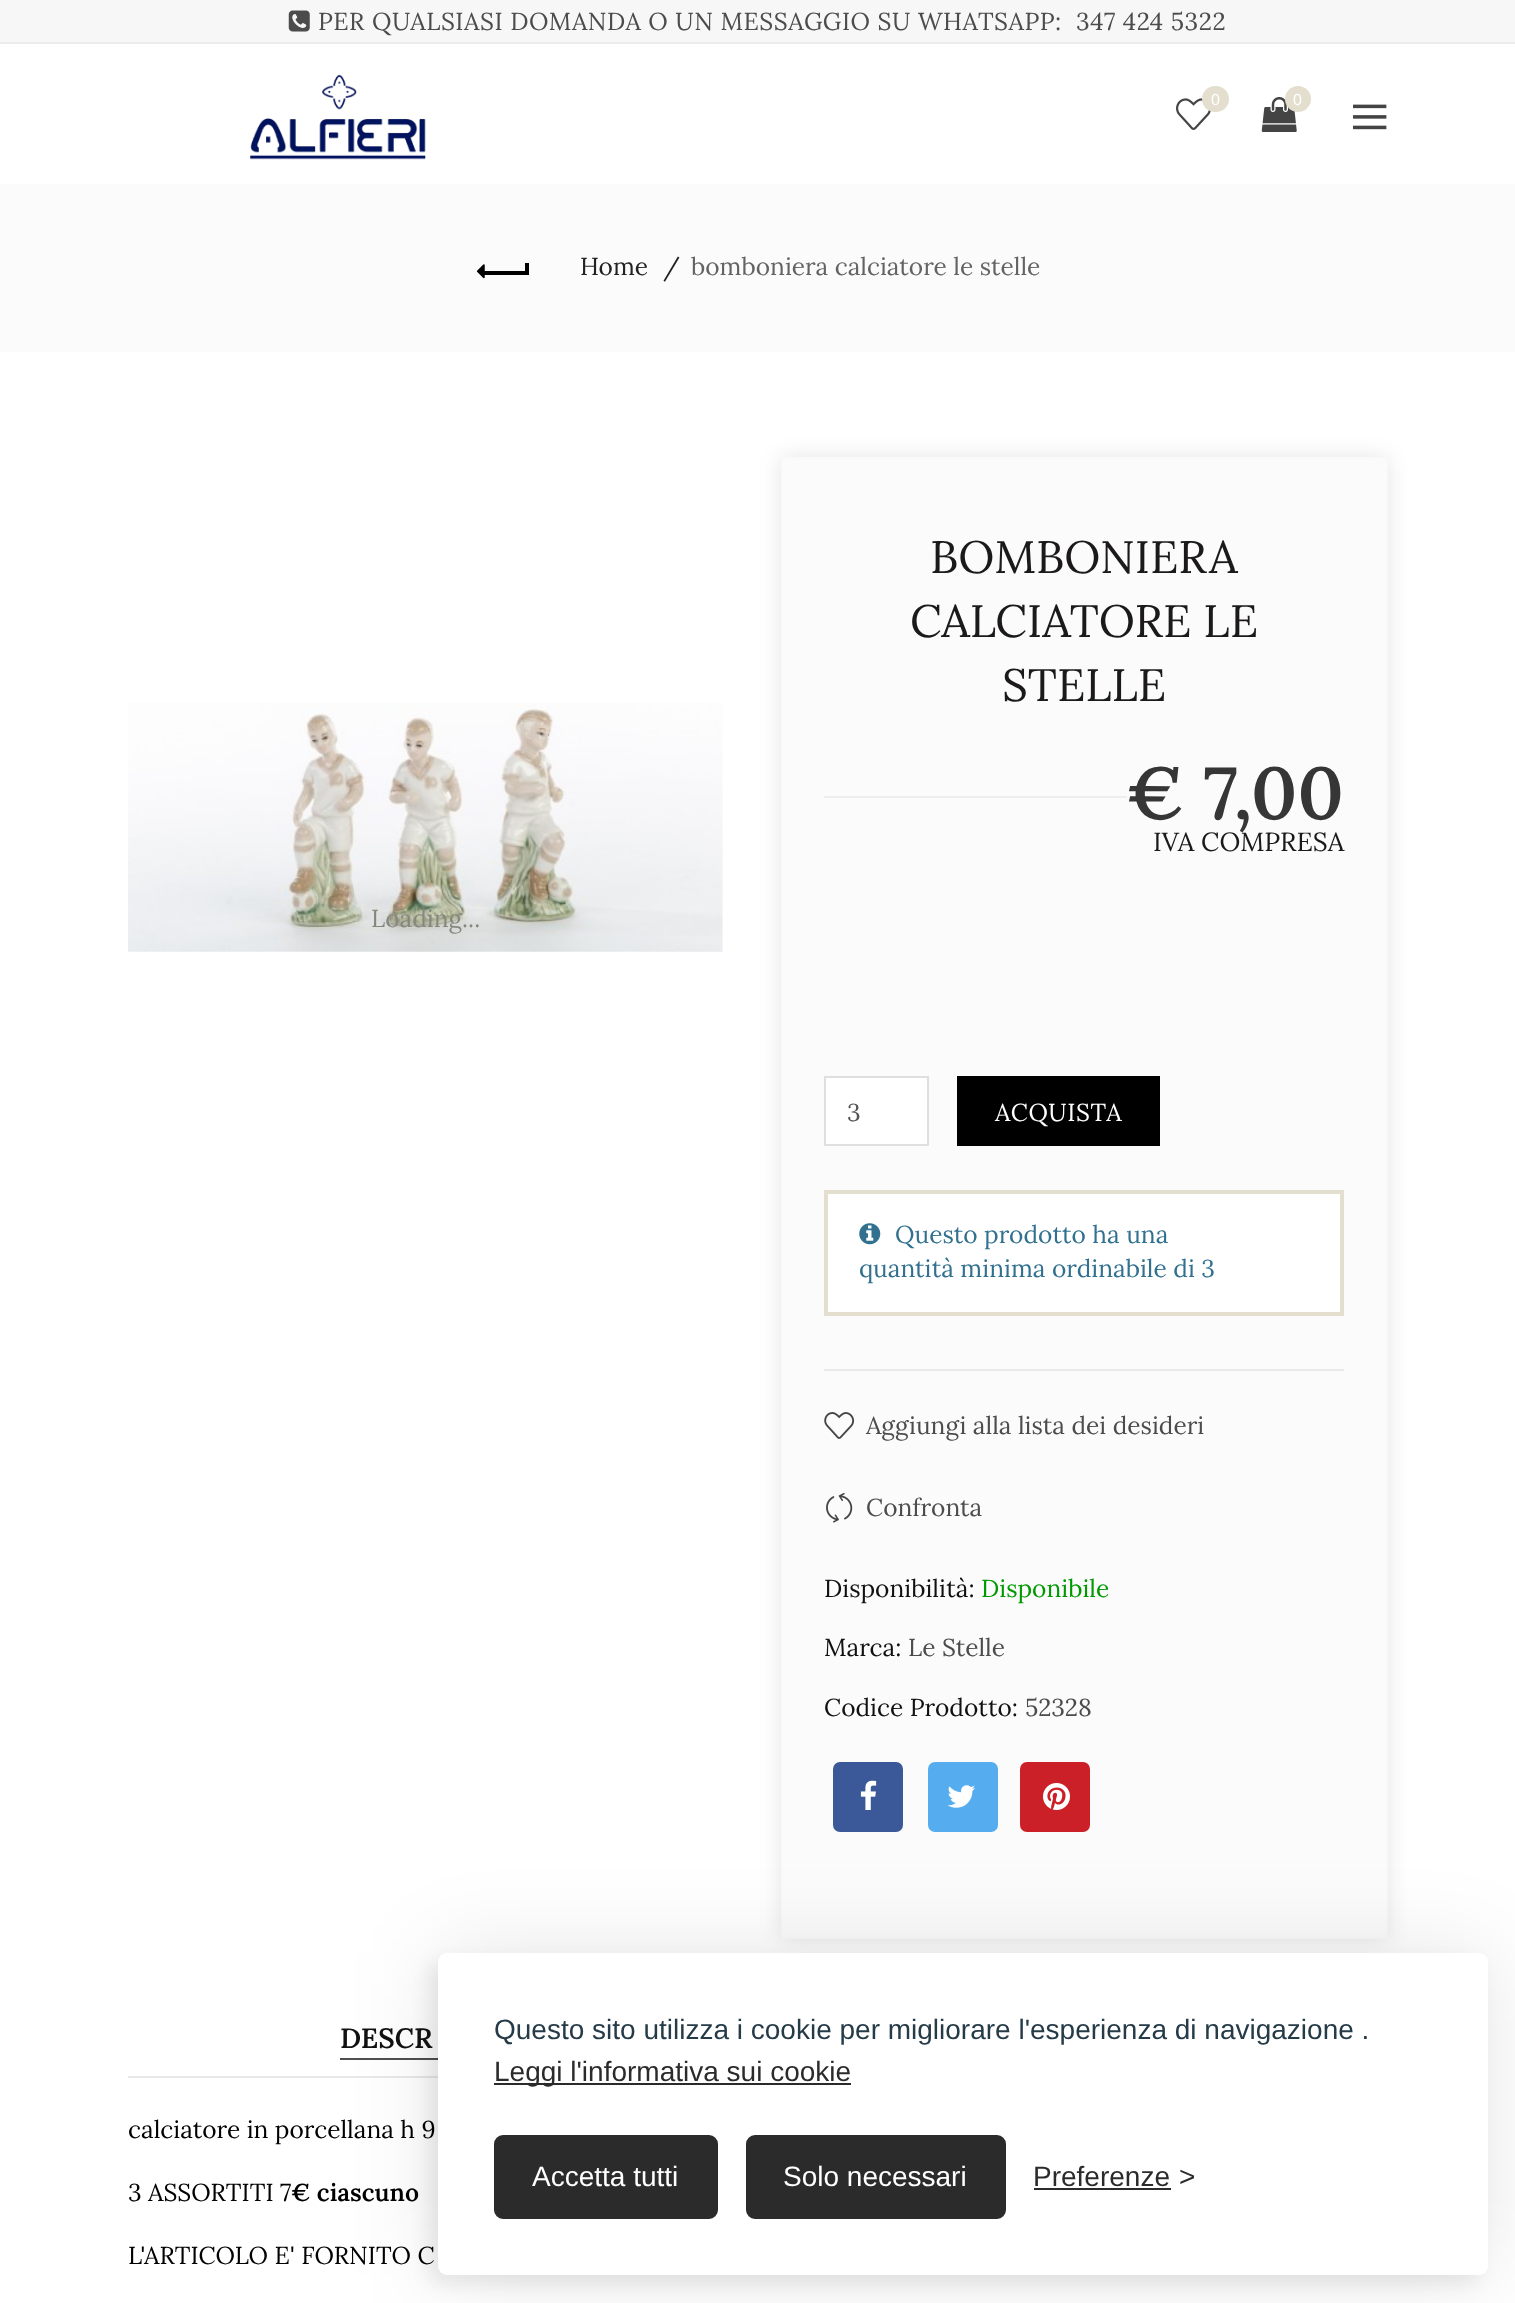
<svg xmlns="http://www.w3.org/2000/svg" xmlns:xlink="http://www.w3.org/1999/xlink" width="1515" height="2303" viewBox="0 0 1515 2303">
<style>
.cls-1{font:24.5px Lora;letter-spacing:0.55px;fill:#4c4c4c}
.cls-2{font:16px Liberation Sans;fill:#ffffff}
.cls-3{font:24.5px Lora;fill:#222222}
.cls-4{font:24.5px Lora;fill:#636363}
.cls-5{font:24.5px Lora;fill:#868880}
.cls-6{font:45.5px Lora;fill:#1b1919}
.cls-7{font:600 73.5px Lora;fill:#363636}
.cls-8{font:26.25px Lora;fill:#1b1919}
.cls-9{font:24.5px Lora;fill:#555555}
.cls-10{font:24.5px Lora;letter-spacing:0.55px;fill:#ffffff}
.cls-11{font:24.5px Lora;fill:#31708f}
.cls-12{font:24.5px Lora;fill:#4c4c4c}
.cls-13{font:24.5px Lora;fill:#111111}
.cls-14{font:24.5px Lora;fill:#009900}
.cls-15{font:600 28px Lora;fill:#111111}
.cls-16{font:24.5px Lora;fill:#000000}
.cls-17{font:600 24.5px Lora;fill:#000000}
.cls-18{font:28px Liberation Sans;fill:#253b48}
.cls-19{font:28px Liberation Sans;fill:#2b2b2b}
.cls-20{font:28px Liberation Sans;fill:#ffffff}
</style>
<rect width="100%" height="100%" fill="#ffffff"/>
<rect fill="#f7f7f7" x="0" y="0" width="1515" height="42"/>
<image xlink:href="image0.png" x="288" y="10" width="22" height="22"/>
<rect fill="#ebebeb" x="0" y="42" width="1515" height="2"/>
<image xlink:href="image1.png" x="250" y="74" width="176" height="86"/>
<image xlink:href="image2.png" x="1176" y="98" width="35" height="32"/>
<rect fill="#e3decd" x="1202" y="86" width="27" height="26" rx="13"/>
<image xlink:href="image3.png" x="1261" y="97" width="36" height="35"/>
<circle fill="#e3decd" cx="1298" cy="99" r="13"/>
<image xlink:href="image4.png" x="1353" y="104" width="34" height="26"/>
<rect fill="#fbfbfb" x="0" y="184" width="1515" height="168"/>
<rect fill="#000000" x="483" y="271" width="44" height="4"/>
<image xlink:href="image5.png" x="476" y="264" width="9" height="15"/>
<rect fill="#000000" x="525" y="263" width="4" height="12"/>
<image xlink:href="image6.png" x="128" y="703" width="595" height="249"/>
<rect fill="#04061c" fill-opacity="0.1" filter="blur(10.5px)" x="781" y="457" width="607" height="1482"/>
<rect fill="#fbfbfb" stroke="#f9f9f9" stroke-width="2" x="782" y="458" width="605" height="1480"/>
<rect fill="#eeeeee" x="824" y="796" width="303" height="2"/>
<rect fill="#eaeaea" x="824" y="1369" width="520" height="2"/>
<rect fill="#ffffff" stroke="#dfdfdf" stroke-width="2" x="825" y="1077" width="103" height="68"/>
<rect fill="#000000" x="957" y="1076" width="203" height="70"/>
<rect fill="#ffffff" stroke="#e3decd" stroke-width="4" x="826" y="1192" width="516" height="122"/>
<image xlink:href="image7.png" x="859" y="1223" width="22" height="22"/>
<image xlink:href="image8.png" x="824" y="1412" width="31" height="27"/>
<image xlink:href="image9.png" x="826" y="1493" width="27" height="30"/>
<rect fill="#3b5998" x="833" y="1762" width="70" height="70" rx="7"/>
<image xlink:href="image10.png" x="860" y="1780" width="17" height="30"/>
<rect fill="#55acee" x="928" y="1762" width="70" height="70" rx="7"/>
<image xlink:href="image11.png" x="947" y="1785" width="28" height="23"/>
<rect fill="#cb2027" x="1020" y="1762" width="70" height="70" rx="7"/>
<image xlink:href="image12.png" x="1043" y="1783" width="27" height="27"/>
<rect fill="#e9e9e9" x="128" y="2076" width="310" height="2"/>
<rect fill="#4f4f4f" x="340" y="2058" width="98" height="2"/>
<rect fill="#000000" fill-opacity="0.1" filter="blur(44px)" x="438" y="1953" width="1050" height="322" rx="9"/>
<rect fill="#000000" fill-opacity="0.07" filter="blur(9px)" x="429" y="1962" width="1050" height="322" rx="9"/>
<rect fill="#ffffff" x="438" y="1953" width="1050" height="322" rx="9"/>
<rect fill="#2b2b2b" x="494" y="2083" width="357" height="2"/>
<rect fill="#2b2b2b" stroke="#2b2b2b" stroke-width="4" x="496" y="2137" width="220" height="80" rx="7"/>
<rect fill="#2b2b2b" stroke="#2b2b2b" stroke-width="4" x="748" y="2137" width="256" height="80" rx="7"/>
<rect fill="#2b2b2b" x="1034" y="2188" width="137" height="2"/>
<text class="cls-1" x="318" y="30">PER QUALSIASI DOMANDA O UN MESSAGGIO SU WHATSAPP:</text>
<text class="cls-1" x="1076" y="30">347 424 5322</text>
<text class="cls-2" x="1211" y="105">0</text>
<text class="cls-2" x="1293" y="105">0</text>
<text class="cls-3" x="580" y="275">Home</text>
<text class="cls-3" x="663" y="275">/</text>
<text class="cls-4" x="691" y="275">bomboniera calciatore le stelle</text>
<text class="cls-5" x="371" y="927">Loading...</text>
<text class="cls-6" x="930" y="573">BOMBONIERA</text>
<text class="cls-6" x="910" y="637">CALCIATORE LE</text>
<text class="cls-6" x="1002" y="701">STELLE</text>
<text class="cls-7" x="1126" y="819">€ 7,00</text>
<text class="cls-8" x="1153" y="851">IVA COMPRESA</text>
<text class="cls-9" x="847" y="1121">3</text>
<text class="cls-10" x="995" y="1121">ACQUISTA</text>
<text class="cls-11" x="895" y="1243">Questo prodotto ha una</text>
<text class="cls-11" x="859" y="1277">quantità minima ordinabile di 3</text>
<text class="cls-12" x="866" y="1434">Aggiungi alla lista dei desideri</text>
<text class="cls-12" x="866" y="1516">Confronta</text>
<text class="cls-13" x="824" y="1597">Disponibilità:</text>
<text class="cls-14" x="981" y="1597">Disponibile</text>
<text class="cls-13" x="824" y="1656">Marca:</text>
<text class="cls-12" x="908" y="1656">Le Stelle</text>
<text class="cls-13" x="824" y="1716">Codice Prodotto:</text>
<text class="cls-12" x="1025" y="1716">52328</text>
<text class="cls-15" x="340" y="2048">DESCR</text>
<text class="cls-16" x="128" y="2138">calciatore in porcellana h 9</text>
<text class="cls-16" x="128" y="2201">3 ASSORTITI 7</text>
<text class="cls-17" x="291" y="2201">€ ciascuno</text>
<text class="cls-16" x="128" y="2264">L'ARTICOLO E' FORNITO C</text>
<text class="cls-18" x="494" y="2039">Questo sito utilizza i cookie per migliorare l'esperienza di navigazione .</text>
<text class="cls-19" x="494" y="2081">Leggi l'informativa sui cookie</text>
<text class="cls-20" x="532" y="2186">Accetta tutti</text>
<text class="cls-20" x="783" y="2186">Solo necessari</text>
<text class="cls-19" x="1033" y="2186">Preferenze</text>
<text class="cls-19" x="1179" y="2186">&gt;</text>
</svg>
